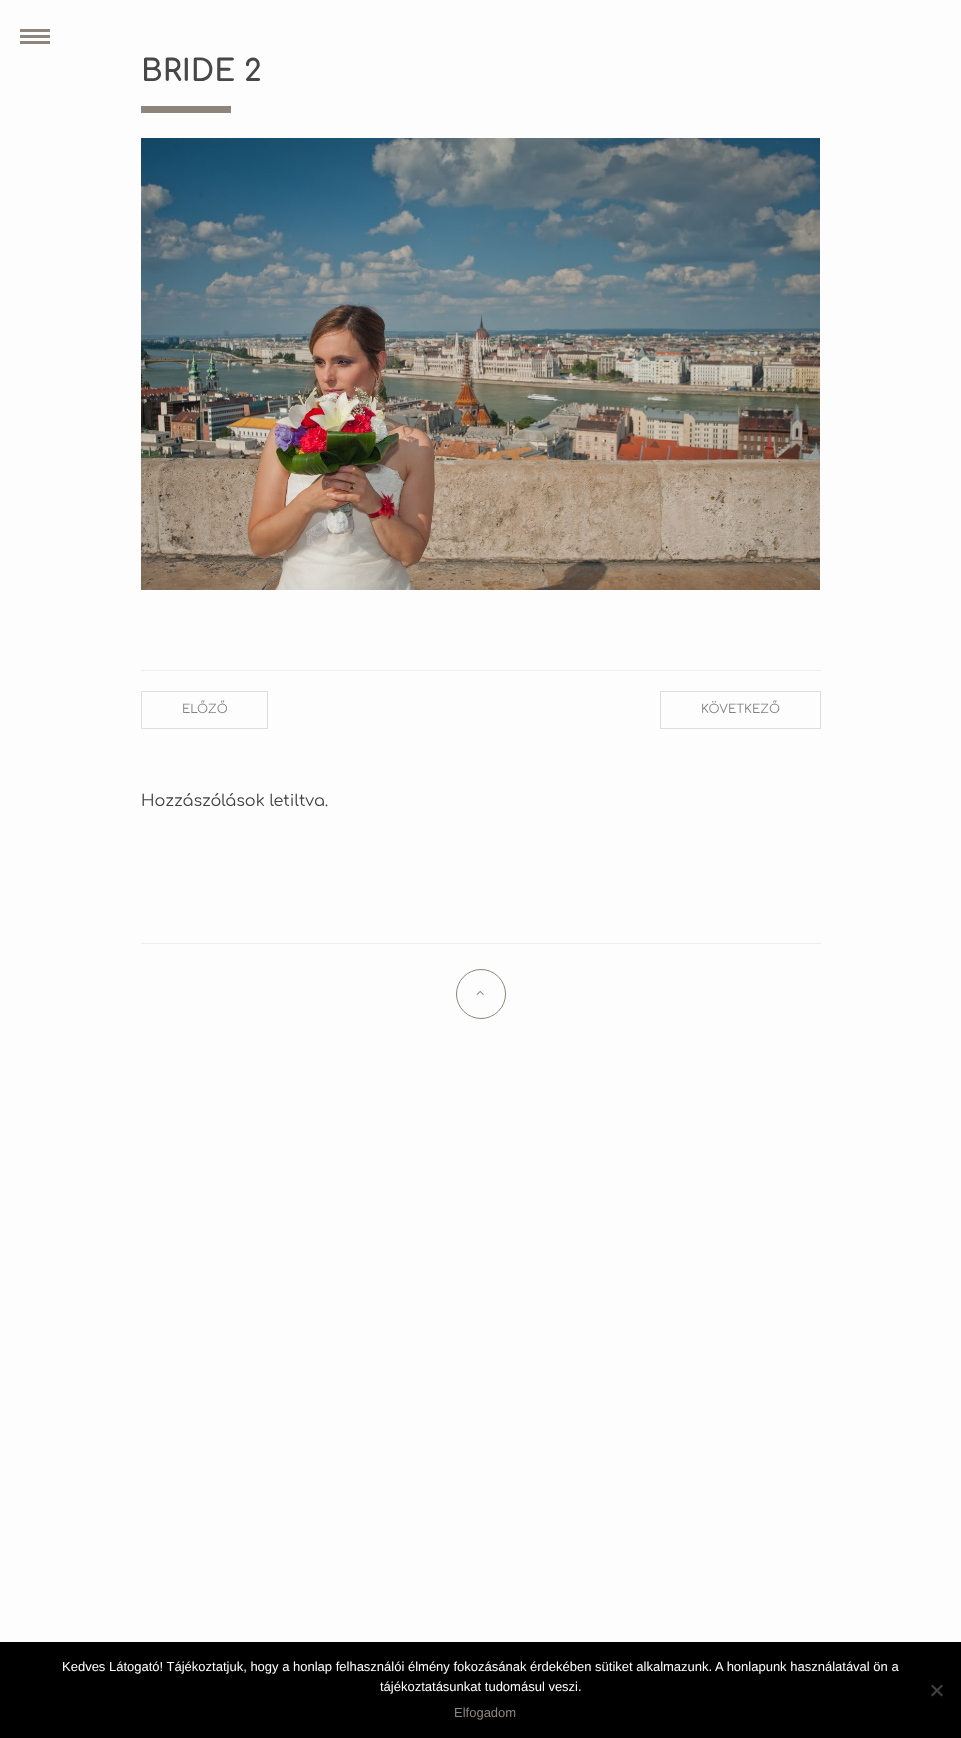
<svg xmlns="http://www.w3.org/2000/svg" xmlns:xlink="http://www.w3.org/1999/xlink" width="961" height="1738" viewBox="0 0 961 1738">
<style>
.cls-1{font:bold 30px Comfortaa;fill:#474747}
.cls-2{font:12px Comfortaa;fill:#818181}
.cls-3{font:16px Comfortaa;fill:#404040}
.cls-4{font:13px Liberation Sans;fill:#ffffff}
.cls-5{font:13px Liberation Sans;fill:#8e857c}
</style>
<rect width="100%" height="100%" fill="#fdfdfd"/>
<rect fill="#8e857c" x="20" y="35" width="30" height="3"/>
<rect fill="#8e857c" x="20" y="29" width="30" height="3"/>
<rect fill="#8e857c" x="20" y="41" width="30" height="3"/>
<rect fill="#8e857c" x="141" y="106" width="90" height="7"/>
<image xlink:href="image0.png" x="141" y="138" width="679" height="452"/>
<rect fill="#eeeeee" x="141" y="670" width="680" height="1"/>
<rect fill="none" stroke="#dedede" x="141.5" y="691.5" width="126" height="37"/>
<rect fill="none" stroke="#dedede" x="660.5" y="691.5" width="160" height="37"/>
<rect fill="#eeeeee" x="141" y="943" width="680" height="1"/>
<circle fill="none" stroke="#8e857c" cx="481" cy="994" r="24.5"/>
<image xlink:href="image1.png" x="476" y="990" width="8" height="5"/>
<rect fill="#000000" x="0" y="1642" width="961" height="96"/>
<path fill="#404040" d="M941.5 1684.5L943 1686L932.5 1696.5L931 1695Z"/>
<path fill="#404040" d="M931 1686L932.5 1684.5L943 1695L941.5 1696.5Z"/>
<text class="cls-1" x="141" y="81">BRIDE 2</text>
<text class="cls-2" x="182" y="713">ELŐZŐ</text>
<text class="cls-2" x="701" y="713">KÖVETKEZŐ</text>
<text class="cls-3" x="141" y="806">Hozzászólások letiltva.</text>
<text class="cls-4" x="62" y="1671">Kedves Látogató! Tájékoztatjuk, hogy a honlap felhasználói élmény fokozásának érdekében sütiket alkalmazunk. A honlapunk használatával ön a</text>
<text class="cls-4" x="380" y="1691">tájékoztatásunkat tudomásul veszi.</text>
<text class="cls-5" x="454" y="1717">Elfogadom</text>
</svg>
